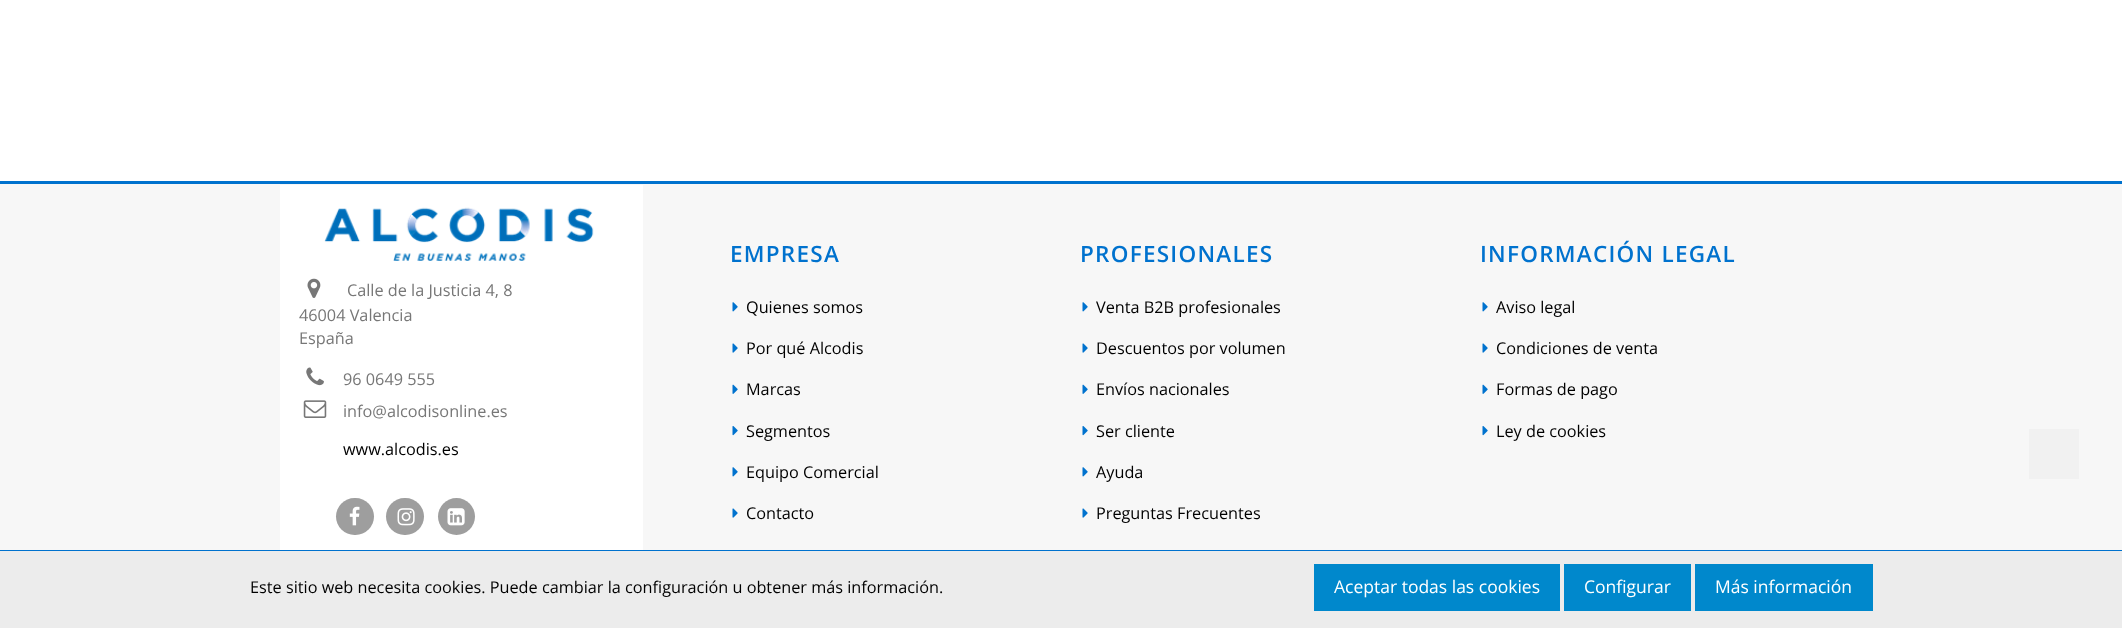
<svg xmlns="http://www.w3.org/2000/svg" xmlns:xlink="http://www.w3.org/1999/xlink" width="2122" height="628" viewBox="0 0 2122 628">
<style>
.cls-1{font:16.25px Open Sans;fill:#777777}
.cls-2{font:16.25px Open Sans;fill:#000000}
.cls-3{font:600 22.5px Open Sans;letter-spacing:1.25px;fill:#0072ce}
.cls-4{font:17.5px Open Sans;fill:#ffffff}
</style>
<rect width="100%" height="100%" fill="#ffffff"/>
<rect fill="#f7f7f7" x="0" y="184" width="2122" height="366"/>
<rect fill="#0072ce" x="0" y="181" width="2122" height="3"/>
<rect fill="#ffffff" x="280" y="185" width="363" height="365"/>
<image xlink:href="image0.png" x="324" y="207" width="270" height="54"/>
<image xlink:href="image1.png" x="307" y="278" width="14" height="20"/>
<image xlink:href="image2.png" x="306" y="367" width="18" height="19"/>
<image xlink:href="image3.png" x="303" y="400" width="24" height="18"/>
<rect fill="#9e9e9e" x="336" y="498" width="38" height="37" rx="18.5"/>
<image xlink:href="image4.png" x="349" y="506" width="11" height="20"/>
<rect fill="#9e9e9e" x="386" y="498" width="38" height="37" rx="18.5"/>
<image xlink:href="image5.png" x="397" y="508" width="18" height="18"/>
<circle fill="#9e9e9e" cx="456.5" cy="516.5" r="18.5"/>
<image xlink:href="image6.png" x="447" y="508" width="18" height="18"/>
<image xlink:href="image7.png" x="732" y="302" width="6" height="10"/>
<image xlink:href="image8.png" x="732" y="343" width="6" height="10"/>
<image xlink:href="image9.png" x="732" y="384" width="6" height="10"/>
<image xlink:href="image10.png" x="732" y="426" width="6" height="10"/>
<image xlink:href="image7.png" x="732" y="467" width="6" height="10"/>
<image xlink:href="image8.png" x="732" y="508" width="6" height="10"/>
<image xlink:href="image7.png" x="1082" y="302" width="6" height="10"/>
<image xlink:href="image8.png" x="1082" y="343" width="6" height="10"/>
<image xlink:href="image9.png" x="1082" y="384" width="6" height="10"/>
<image xlink:href="image10.png" x="1082" y="426" width="6" height="10"/>
<image xlink:href="image7.png" x="1082" y="467" width="6" height="10"/>
<image xlink:href="image8.png" x="1082" y="508" width="6" height="10"/>
<image xlink:href="image7.png" x="1482" y="302" width="6" height="10"/>
<image xlink:href="image8.png" x="1482" y="343" width="6" height="10"/>
<image xlink:href="image9.png" x="1482" y="384" width="6" height="10"/>
<image xlink:href="image10.png" x="1482" y="426" width="6" height="10"/>
<rect fill="#f1f1f1" x="2029" y="429" width="50" height="50"/>
<rect fill="#ececec" x="0" y="551" width="2122" height="77"/>
<rect fill="#0072ce" x="0" y="550" width="2122" height="1"/>
<rect fill="#0088cc" x="1314" y="564" width="246" height="47"/>
<rect fill="#0088cc" x="1564" y="564" width="127" height="47"/>
<rect fill="#0088cc" x="1695" y="564" width="178" height="47"/>
<text class="cls-1" x="347" y="296">Calle de la Justicia 4, 8</text>
<text class="cls-1"><tspan x="299" y="321">46004 Valencia</tspan><tspan x="299" y="344">España</tspan></text>
<text class="cls-1"><tspan x="343" y="385">96 0649 555</tspan><tspan x="343" y="417">info@alcodisonline.es</tspan></text>
<text class="cls-2" x="343" y="455">www.alcodis.es</text>
<text class="cls-3" x="730" y="262">EMPRESA</text>
<text class="cls-2" x="746" y="313">Quienes somos</text>
<text class="cls-2" x="746" y="354">Por qué Alcodis</text>
<text class="cls-2" x="746" y="395">Marcas</text>
<text class="cls-2" x="746" y="437">Segmentos</text>
<text class="cls-2" x="746" y="478">Equipo Comercial</text>
<text class="cls-2" x="746" y="519">Contacto</text>
<text class="cls-3" x="1080" y="262">PROFESIONALES</text>
<text class="cls-2" x="1096" y="313">Venta B2B profesionales</text>
<text class="cls-2" x="1096" y="354">Descuentos por volumen</text>
<text class="cls-2" x="1096" y="395">Envíos nacionales</text>
<text class="cls-2" x="1096" y="437">Ser cliente</text>
<text class="cls-2" x="1096" y="478">Ayuda</text>
<text class="cls-2" x="1096" y="519">Preguntas Frecuentes</text>
<text class="cls-3" x="1480" y="262">INFORMACIÓN LEGAL</text>
<text class="cls-2" x="1496" y="313">Aviso legal</text>
<text class="cls-2" x="1496" y="354">Condiciones de venta</text>
<text class="cls-2" x="1496" y="395">Formas de pago</text>
<text class="cls-2" x="1496" y="437">Ley de cookies</text>
<text class="cls-2" x="250" y="593">Este sitio web necesita cookies. Puede cambiar la configuración u obtener más información.</text>
<text class="cls-4" x="1334" y="593">Aceptar todas las cookies</text>
<text class="cls-4" x="1584" y="593">Configurar</text>
<text class="cls-4" x="1715" y="593">Más información</text>
</svg>
